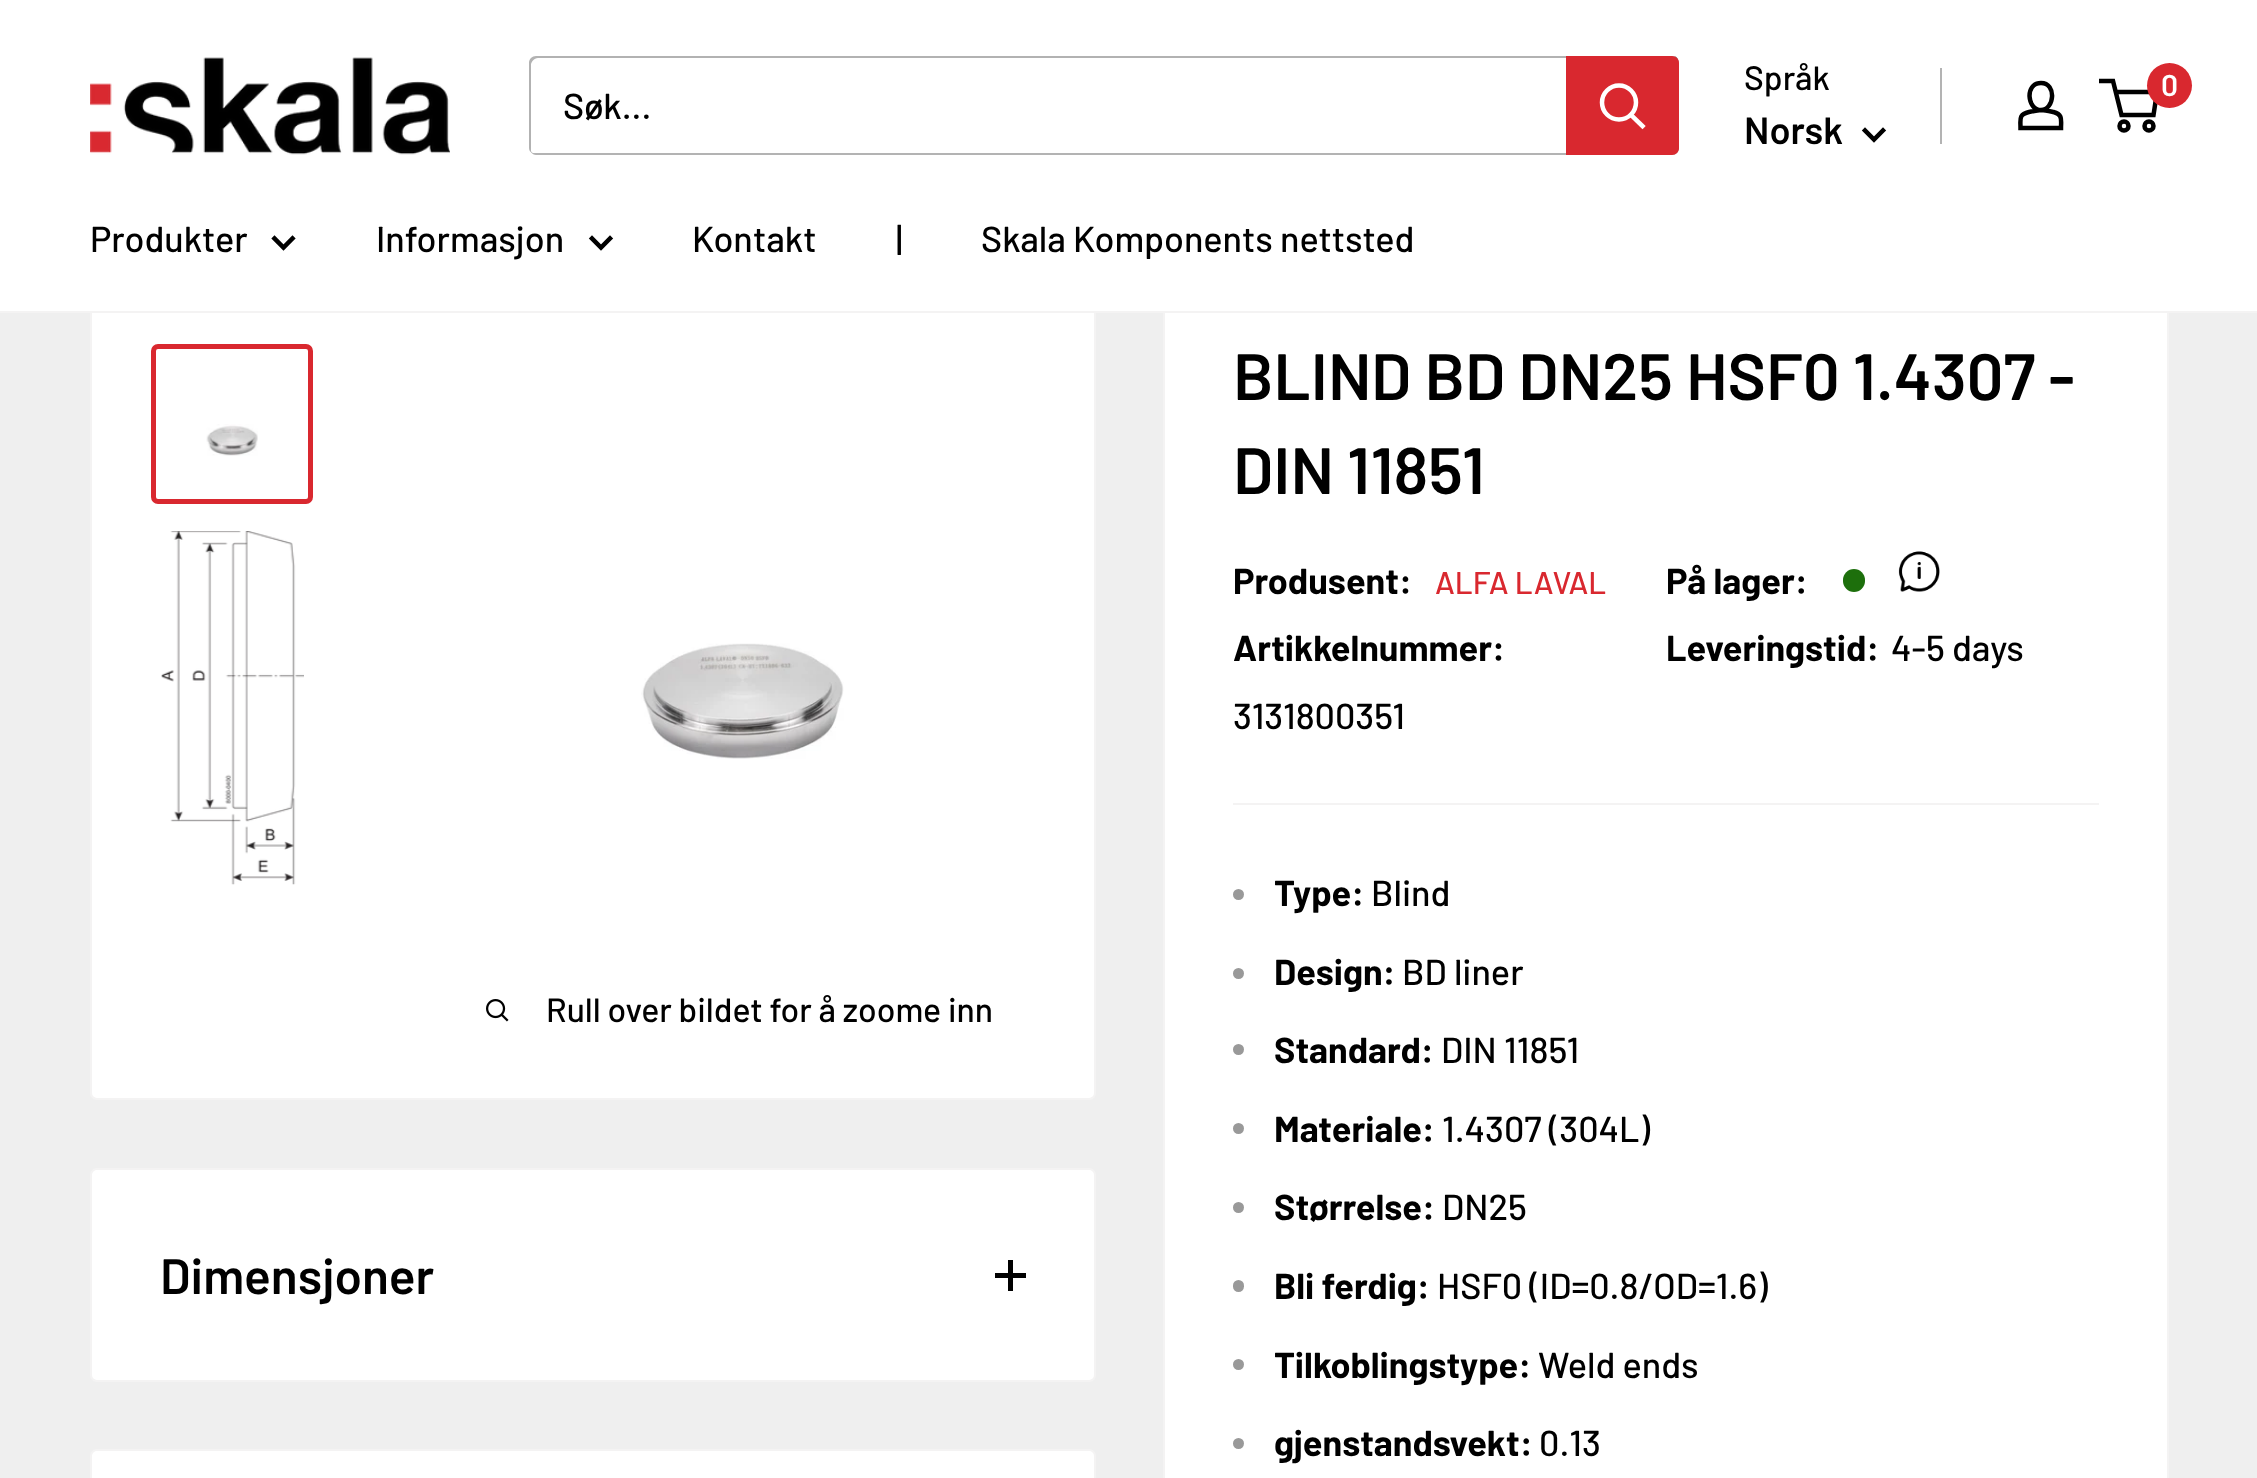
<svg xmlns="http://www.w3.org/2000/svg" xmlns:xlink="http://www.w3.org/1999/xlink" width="2257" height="1478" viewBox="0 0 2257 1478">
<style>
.cls-1{font:500 36px Barlow;fill:#000000}
.cls-2{font:500 33.75px Barlow;fill:#000000}
.cls-3{font:600 38px Barlow;fill:#000000}
.cls-4{font:600 30px Barlow;fill:#ffffff}
.cls-5{font:600 65.25px Barlow;fill:#000000}
.cls-6{font:bold 36px Barlow;fill:#000000}
.cls-7{font:500 31.5px Barlow;fill:#d9282f}
.cls-8{font:600 49.5px Barlow;fill:#000000}
</style>
<rect width="100%" height="100%" fill="#efefef"/>
<rect fill="#ffffff" stroke="#f4f3f3" stroke-width="2" x="91" y="285" width="1004" height="814" rx="6"/>
<rect fill="#ffffff" x="1165" y="313" width="1002" height="1165"/>
<rect fill="none" stroke="#f4f3f3" stroke-width="2" x="1164" y="285" width="1004" height="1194"/>
<rect fill="#ffffff" x="0" y="0" width="2257" height="311"/>
<image xlink:href="image0.png" x="90" y="57" width="360" height="98"/>
<path fill="#b3b3b3" d="M531 152C532 154 534 155 536 155H1672C1676 155 1679 152 1679 148V63C1679 60 1677 57 1675 56C1675 58 1676 59 1676 61V146C1676 150 1673 153 1670 153H533Z"/>
<path fill="#000000" fill-opacity="0.3" d="M538 58H1674C1676 58 1677 59 1678 59C1677 57 1675 56 1672 56H536C532 56 529 59 529 63V148C529 150 530 152 532 153L531 151V65C531 62 534 58 538 58Z"/>
<path fill="#d9282f" d="M1566 56H1672C1676 56 1679 59 1679 63V148C1679 152 1676 155 1672 155H1566Z"/>
<path fill="none" stroke="#ffffff" stroke-width="4.5" stroke-linecap="square" d="M1642.5 126L1631 115"/>
<circle fill="none" stroke="#ffffff" stroke-width="4.5" cx="1619" cy="102.5" r="17"/>
<path fill="none" stroke="#000000" stroke-width="4.5" stroke-linecap="square" d="M1883 130.5L1874 139.5L1865 130.5"/>
<rect fill="#b3b3b3" x="1940" y="68" width="2" height="76"/>
<path fill="none" stroke="#000000" stroke-width="4.5" d="M2041 110C2045 110 2049 111 2053.5 112C2063 114.5 2061 120 2061 128H2020.5C2020.5 119 2018.5 114.5 2029 112C2033 111 2037 110.5 2041 110ZM2041 110C2027 110 2024.5 83 2041 83C2057 83 2054.5 110 2041 110Z"/>
<circle fill="none" stroke="#000000" stroke-width="4.5" cx="2124" cy="126" r="4.5"/>
<circle fill="none" stroke="#000000" stroke-width="4.5" cx="2149" cy="126" r="4.5"/>
<path fill="none" stroke="#000000" stroke-width="4.5" d="M2115.5 92H2157L2153.5 115H2121.5L2113 81H2099"/>
<circle fill="#d9282f" cx="2169.5" cy="85.5" r="22.5"/>
<rect fill="#f4f3f3" x="0" y="311" width="2257" height="2"/>
<path fill="none" stroke="#000000" stroke-width="4.5" stroke-linecap="square" d="M292.5 238.5L283.5 247.5L274.5 238.5"/>
<path fill="none" stroke="#000000" stroke-width="4.5" stroke-linecap="square" d="M610 238.5L601 247.5L592 238.5"/>
<rect fill="none" stroke="#d9282f" stroke-width="5" x="153.5" y="346.5" width="157" height="155" rx="4.5"/>
<image xlink:href="image1.png" x="206" y="424" width="52" height="32"/>
<image xlink:href="image2.png" x="161" y="531" width="143" height="354"/>
<image xlink:href="image3.png" x="641" y="643" width="203" height="116"/>
<image xlink:href="image4.png" x="486" y="999" width="23" height="23"/>
<rect fill="#1d6f0c" x="1843" y="569" width="22" height="23" rx="11"/>
<image xlink:href="image5.png" x="1898" y="551" width="42" height="41"/>
<rect fill="#f4f3f3" x="1233" y="803" width="866" height="2"/>
<circle fill="#999999" cx="1238.5" cy="894.5" r="5.5"/>
<circle fill="#999999" cx="1238.5" cy="973.5" r="5.5"/>
<circle fill="#999999" cx="1238.5" cy="1049.5" r="5.5"/>
<circle fill="#999999" cx="1238.5" cy="1128.5" r="5.5"/>
<circle fill="#999999" cx="1238.5" cy="1207.5" r="5.5"/>
<rect fill="#999999" x="1233" y="1280" width="11" height="12" rx="5.5"/>
<circle fill="#999999" cx="1238.5" cy="1364.5" r="5.5"/>
<circle fill="#999999" cx="1238.5" cy="1443.5" r="5.5"/>
<rect fill="#ffffff" stroke="#f4f3f3" stroke-width="2" x="91" y="1169" width="1004" height="212" rx="6"/>
<rect fill="#000000" x="1008" y="1260" width="5" height="31"/>
<rect fill="#000000" x="995" y="1273" width="31" height="5"/>
<rect fill="#ffffff" stroke="#f4f3f3" stroke-width="2" x="91" y="1450" width="1004" height="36" rx="6"/>
<text class="cls-1" x="563" y="119">Søk...</text>
<text class="cls-2" x="1744" y="90">Språk</text>
<text class="cls-3" x="1744" y="144">Norsk</text>
<text class="cls-4" x="2161" y="96">0</text>
<text class="cls-1" x="90" y="252">Produkter</text>
<text class="cls-1" x="376" y="252">Informasjon</text>
<text class="cls-1" x="692" y="252">Kontakt</text>
<text class="cls-1" x="896" y="252">|</text>
<text class="cls-1" x="981" y="252">Skala Komponents nettsted</text>
<text class="cls-2" x="546" y="1022">Rull over bildet for å zoome inn</text>
<text class="cls-5"><tspan x="1233" y="400">BLIND BD DN25 HSF0 1.4307 -</tspan><tspan x="1233" y="494">DIN 11851</tspan></text>
<text class="cls-6" x="1233" y="594">Produsent:</text>
<text class="cls-7" x="1435" y="594">ALFA LAVAL</text>
<text class="cls-6" x="1233" y="661">Artikkelnummer:</text>
<text class="cls-1" x="1233" y="729">3131800351</text>
<text class="cls-6"><tspan x="1666" y="594">På lager:</tspan><tspan x="1666" y="661">Leveringstid:</tspan></text>
<text class="cls-1" x="1891" y="661">4-5 days</text>
<text class="cls-6" x="1274" y="906">Type:</text>
<text class="cls-1" x="1371" y="906">Blind</text>
<text class="cls-6" x="1274" y="985">Design:</text>
<text class="cls-1" x="1402" y="985">BD liner</text>
<text class="cls-6" x="1274" y="1063">Standard:</text>
<text class="cls-1" x="1441" y="1063">DIN 11851</text>
<text class="cls-6" x="1274" y="1142">Materiale:</text>
<text class="cls-1" x="1442" y="1142">1.4307 (304L)</text>
<text class="cls-6" x="1274" y="1220">Størrelse:</text>
<text class="cls-1" x="1442" y="1220">DN25</text>
<text class="cls-6" x="1274" y="1299">Bli ferdig:</text>
<text class="cls-1" x="1437" y="1299">HSF0 (ID=0.8/OD=1.6)</text>
<text class="cls-6" x="1274" y="1378">Tilkoblingstype:</text>
<text class="cls-1" x="1538" y="1378">Weld ends</text>
<text class="cls-6" x="1274" y="1456">gjenstandsvekt:</text>
<text class="cls-1" x="1539" y="1456">0.13</text>
<text class="cls-8" x="160" y="1294">Dimensjoner</text>
</svg>
